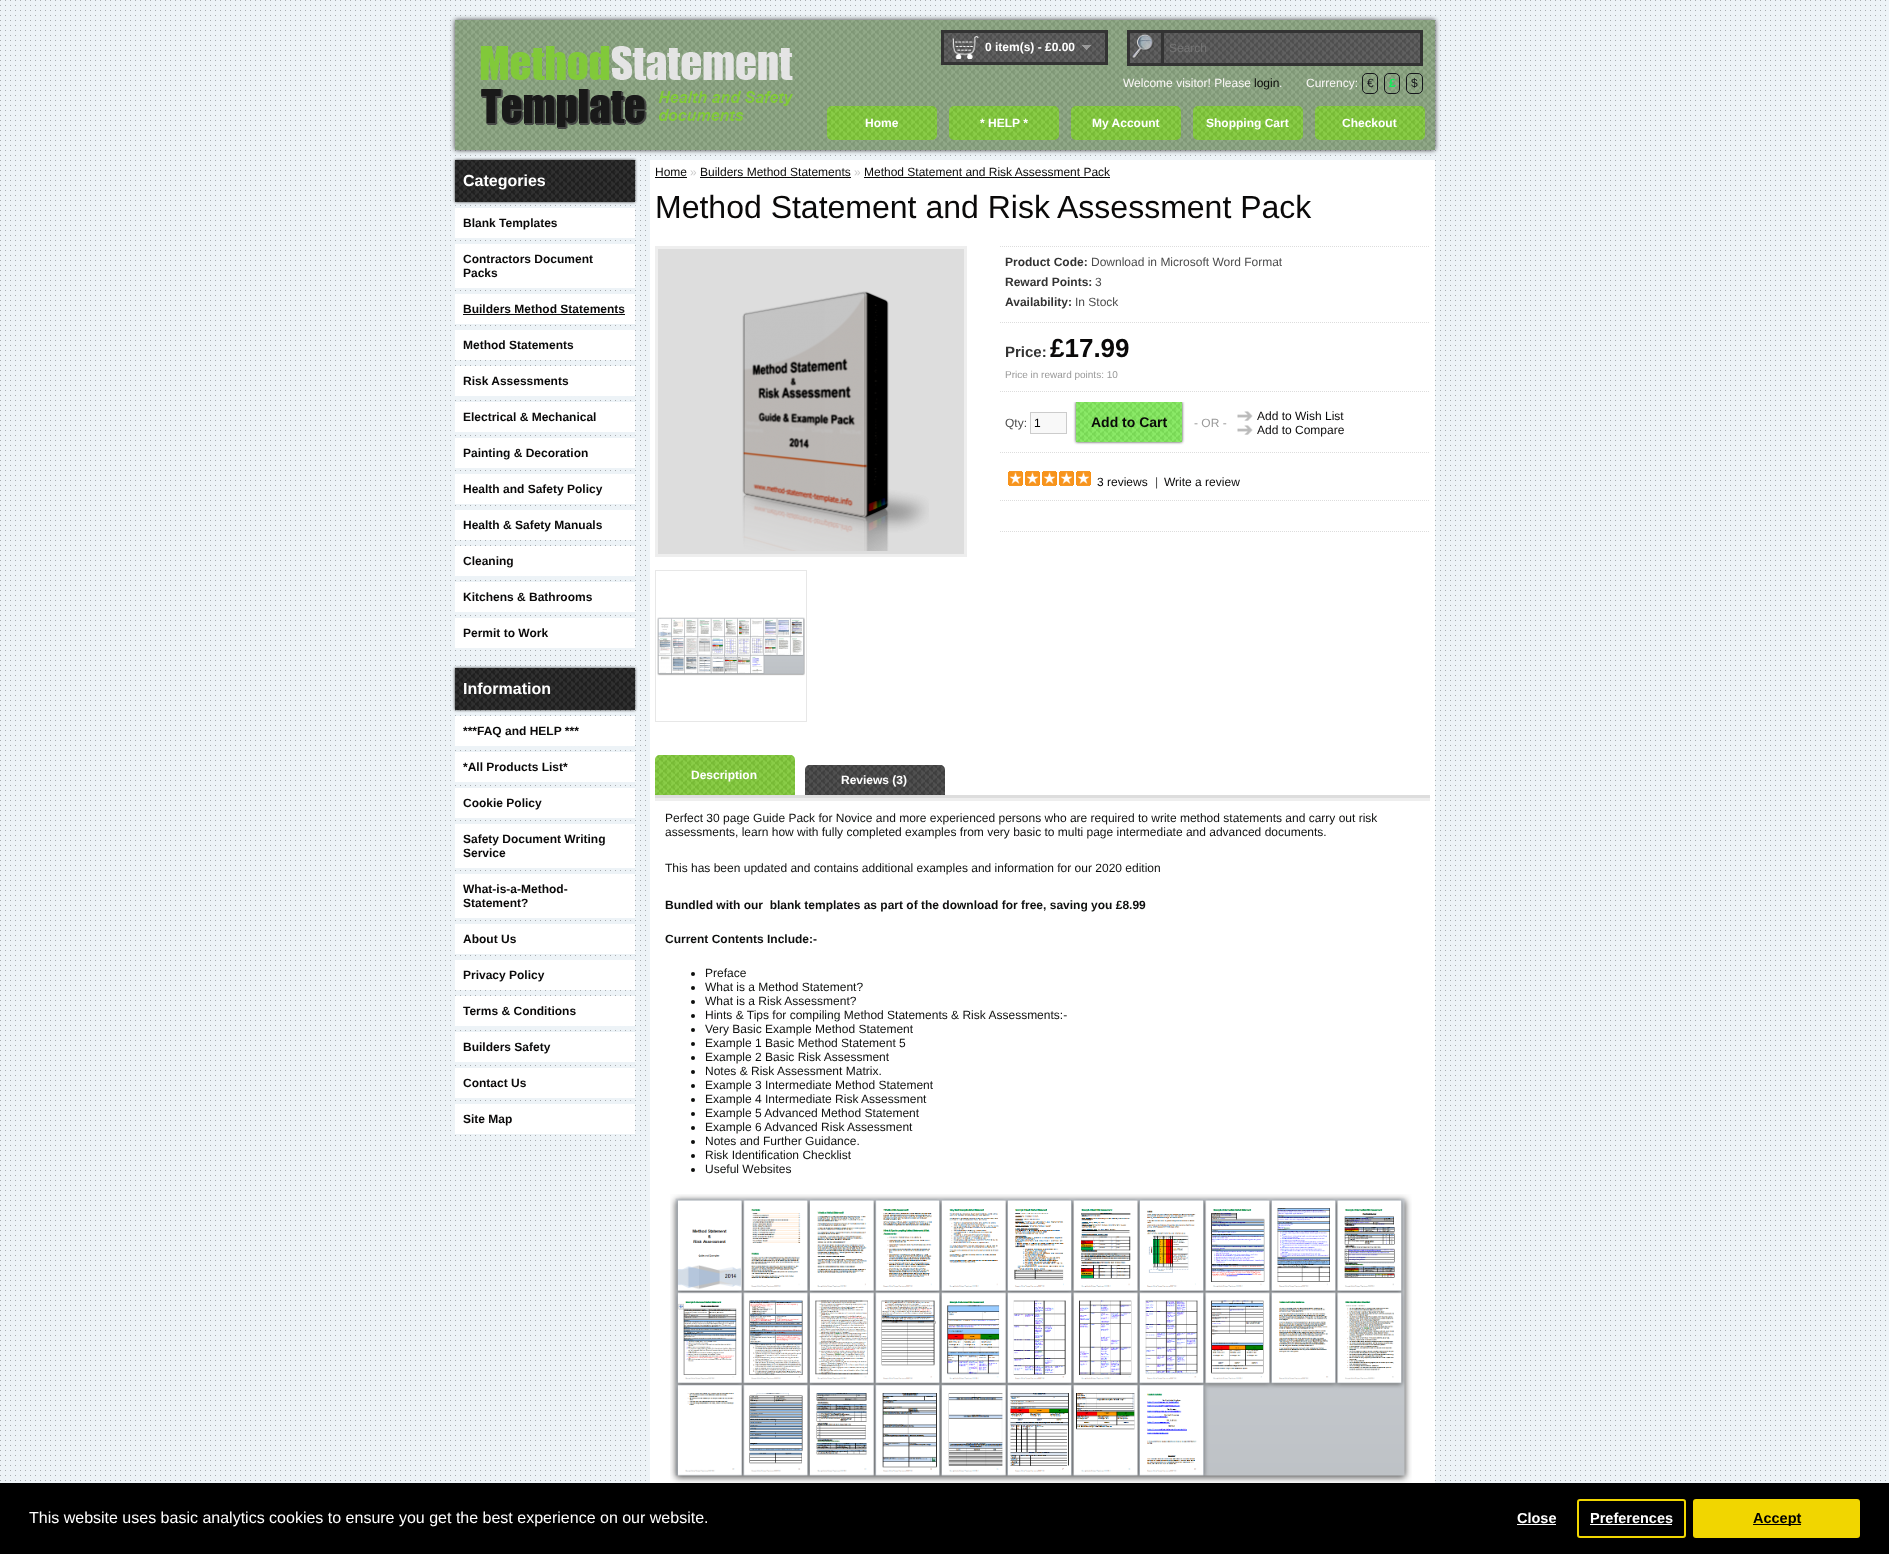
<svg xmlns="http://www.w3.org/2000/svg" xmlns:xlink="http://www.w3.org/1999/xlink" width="1889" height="1554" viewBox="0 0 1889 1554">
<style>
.cls-1{font:bold 12px Liberation Sans;fill:#ffffff}
.cls-2{font:12px Liberation Sans;fill:#757575}
.cls-3{font:12px Liberation Sans;fill:#faf7f7}
.cls-4{font:12px Liberation Sans;fill:#0a0909}
.cls-5{font:12px Liberation Sans;fill:#16161c}
.cls-6{font:bold 12px Liberation Sans;fill:#11ed5a}
.cls-7{font:bold 16px Liberation Sans;fill:#ffffff}
.cls-8{font:bold 12px Liberation Sans;fill:#0a0909}
.cls-9{font:12px Liberation Sans;fill:#cccccc}
.cls-10{font:32px Liberation Sans;fill:#0a0909}
.cls-11{font:bold 12px Liberation Sans;fill:#333333}
.cls-12{font:12px Liberation Sans;fill:#4d4d4d}
.cls-13{font:bold 15px Liberation Sans;fill:#333333}
.cls-14{font:bold 26px Liberation Sans;fill:#0a0909}
.cls-15{font:10px Liberation Sans;fill:#999999}
.cls-16{font:12px Liberation Sans;fill:#000000}
.cls-17{font:bold 14px Liberation Sans;fill:#0a0909}
.cls-18{font:12px Liberation Sans;fill:#999999}
.cls-19{font:12px Liberation Sans;fill:#0e0f0e}
.cls-20{font:bold 12px Liberation Sans;fill:#0e0f0e}
.cls-21{font:16px Liberation Sans;fill:#ffffff}
.cls-22{font:bold 14.5px Liberation Sans;fill:#ffffff}
.cls-23{font:bold 14.5px Liberation Sans;fill:#000000}
</style>
<defs>
<clipPath id="clip1"><rect x="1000" y="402" width="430" height="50"/></clipPath>
</defs>
<rect width="100%" height="100%" fill="#eef4f8"/>
<image xlink:href="image0.png" x="0" y="0" width="1886" height="1481"/>
<rect fill="#333333" filter="blur(2.5px)" x="455" y="20" width="980" height="130"/>
<rect fill="#8aa380" x="455" y="20" width="980" height="130"/>
<image xlink:href="image1.png" x="455" y="20" width="980" height="130"/>
<image xlink:href="image2.png" x="480" y="46" width="313" height="83"/>
<rect fill="#555555" x="944" y="33" width="161" height="29"/>
<image xlink:href="image3.png" x="944" y="33" width="161" height="29"/>
<rect fill="none" stroke="#333333" stroke-width="3" x="942.5" y="31.5" width="164" height="32"/>
<image xlink:href="image4.png" x="952" y="36" width="27" height="23"/>
<image xlink:href="image5.png" x="1082" y="45" width="9" height="5"/>
<rect fill="#555555" x="1130" y="33" width="290" height="30"/>
<image xlink:href="image7.png" x="1130" y="33" width="290" height="30"/>
<rect fill="none" stroke="#333333" stroke-width="3" x="1128.5" y="31.5" width="293" height="33"/>
<image xlink:href="image6.png" x="1132" y="34" width="22" height="25"/>
<rect fill="#333333" x="1161" y="30" width="3" height="33"/>
<rect fill="none" stroke="#16161c" x="1362.5" y="73.5" width="15" height="20" rx="4.5"/>
<rect fill="none" stroke="#16161c" x="1384.5" y="73.5" width="15" height="20" rx="4.5"/>
<rect fill="none" stroke="#16161c" x="1406.5" y="73.5" width="16" height="20" rx="4.5"/>
<rect fill="#81c93a" x="827" y="106" width="110" height="34" rx="5"/>
<image xlink:href="image8.png" x="827" y="106" width="110" height="34"/>
<rect fill="#81c93a" x="949" y="106" width="110" height="34" rx="5"/>
<image xlink:href="image9.png" x="949" y="106" width="110" height="34"/>
<rect fill="#81c93a" x="1071" y="106" width="110" height="34" rx="5"/>
<image xlink:href="image10.png" x="1071" y="106" width="110" height="34"/>
<rect fill="#81c93a" x="1193" y="106" width="110" height="34" rx="5"/>
<image xlink:href="image11.png" x="1193" y="106" width="110" height="34"/>
<rect fill="#81c93a" x="1315" y="106" width="110" height="34" rx="5"/>
<image xlink:href="image8.png" x="1315" y="106" width="110" height="34"/>
<rect fill="#333333" filter="blur(1.5px)" x="455" y="160" width="180" height="42"/>
<rect fill="#222222" x="455" y="160" width="180" height="42"/>
<image xlink:href="image12.png" x="455" y="160" width="180" height="42"/>
<rect fill="#ffffff" x="455" y="208" width="180" height="30"/>
<rect fill="#ffffff" x="455" y="244" width="180" height="44"/>
<rect fill="#ffffff" x="455" y="294" width="180" height="30"/>
<rect fill="#0a0909" x="463" y="314" width="162" height="1"/>
<rect fill="#ffffff" x="455" y="330" width="180" height="30"/>
<rect fill="#ffffff" x="455" y="366" width="180" height="30"/>
<rect fill="#ffffff" x="455" y="402" width="180" height="30"/>
<rect fill="#ffffff" x="455" y="438" width="180" height="30"/>
<rect fill="#ffffff" x="455" y="474" width="180" height="30"/>
<rect fill="#ffffff" x="455" y="510" width="180" height="30"/>
<rect fill="#ffffff" x="455" y="546" width="180" height="30"/>
<rect fill="#ffffff" x="455" y="582" width="180" height="30"/>
<rect fill="#ffffff" x="455" y="618" width="180" height="30"/>
<rect fill="#333333" filter="blur(1.5px)" x="455" y="668" width="180" height="42"/>
<rect fill="#222222" x="455" y="668" width="180" height="42"/>
<image xlink:href="image12.png" x="455" y="668" width="180" height="42"/>
<rect fill="#ffffff" x="455" y="716" width="180" height="30"/>
<rect fill="#ffffff" x="455" y="752" width="180" height="30"/>
<rect fill="#ffffff" x="455" y="788" width="180" height="30"/>
<rect fill="#ffffff" x="455" y="824" width="180" height="44"/>
<rect fill="#ffffff" x="455" y="874" width="180" height="44"/>
<rect fill="#ffffff" x="455" y="924" width="180" height="30"/>
<rect fill="#ffffff" x="455" y="960" width="180" height="30"/>
<rect fill="#ffffff" x="455" y="996" width="180" height="30"/>
<rect fill="#ffffff" x="455" y="1032" width="180" height="30"/>
<rect fill="#ffffff" x="455" y="1068" width="180" height="30"/>
<rect fill="#ffffff" x="455" y="1104" width="180" height="30"/>
<rect fill="#ffffff" x="650" y="160" width="785" height="1323"/>
<rect fill="#080808" x="655" y="177" width="32" height="1"/>
<rect fill="#080808" x="700" y="177" width="151" height="1"/>
<rect fill="#080808" x="864" y="177" width="246" height="1"/>
<rect fill="#dddddd" stroke="#eeeeee" stroke-width="3" x="656.5" y="247.5" width="309" height="308"/>
<image xlink:href="image13.png" x="742" y="291" width="187" height="260"/>
<rect fill="none" stroke="#e7e7e7" x="655.5" y="570.5" width="151" height="151"/>
<image xlink:href="image14.png" x="657" y="617" width="148" height="59"/>
<path fill="none" stroke="#dddddd" stroke-dasharray="1 1" d="M1000 246.5H1430"/>
<path fill="none" stroke="#dddddd" stroke-dasharray="1 1" d="M1000 322.5H1430"/>
<path fill="none" stroke="#dddddd" stroke-dasharray="1 1" d="M1000 391.5H1430"/>
<path fill="none" stroke="#dddddd" stroke-dasharray="1 1" d="M1000 452.5H1430"/>
<rect fill="#f8f8f8" stroke="#cccccc" x="1030.5" y="412.5" width="36" height="21"/>
<g clip-path="url(#clip1)">
<rect fill="#333333" filter="blur(1.5px)" x="1076" y="402" width="106" height="40"/>
</g>
<rect fill="#82e85d" x="1076" y="402" width="106" height="40"/>
<image xlink:href="image15.png" x="1076" y="402" width="106" height="40"/>
<image xlink:href="image16.png" x="1237" y="411" width="16" height="10"/>
<image xlink:href="image16.png" x="1237" y="425" width="16" height="10"/>
<path fill="none" stroke="#dddddd" stroke-dasharray="1 1" d="M1000 500.5H1430"/>
<image xlink:href="image17.png" x="1008" y="471" width="83" height="15"/>
<path fill="none" stroke="#dddddd" stroke-dasharray="1 1" d="M1000 531.5H1430"/>
<rect fill="#dddddd" x="655" y="795" width="775" height="3"/>
<path fill="#81c93a" d="M660 755H790C793 755 795 757 795 760V795H655V760C655 757 657 755 660 755Z"/>
<image xlink:href="image18.png" x="655" y="755" width="140" height="40"/>
<path fill="#444444" d="M810 765H940C943 765 945 767 945 770V795H805V770C805 767 807 765 810 765Z"/>
<image xlink:href="image19.png" x="805" y="765" width="140" height="30"/>
<rect fill="#eeeeee" x="655" y="798" width="775" height="3"/>
<circle fill="#0e0f0e" cx="693" cy="974" r="2"/>
<circle fill="#0e0f0e" cx="693" cy="988" r="2"/>
<circle fill="#0e0f0e" cx="693" cy="1002" r="2"/>
<circle fill="#0e0f0e" cx="693" cy="1016" r="2"/>
<circle fill="#0e0f0e" cx="693" cy="1030" r="2"/>
<circle fill="#0e0f0e" cx="693" cy="1044" r="2"/>
<circle fill="#0e0f0e" cx="693" cy="1058" r="2"/>
<circle fill="#0e0f0e" cx="693" cy="1072" r="2"/>
<circle fill="#0e0f0e" cx="693" cy="1086" r="2"/>
<circle fill="#0e0f0e" cx="693" cy="1100" r="2"/>
<circle fill="#0e0f0e" cx="693" cy="1114" r="2"/>
<circle fill="#0e0f0e" cx="693" cy="1128" r="2"/>
<circle fill="#0e0f0e" cx="693" cy="1142" r="2"/>
<circle fill="#0e0f0e" cx="693" cy="1156" r="2"/>
<circle fill="#0e0f0e" cx="693" cy="1170" r="2"/>
<image xlink:href="image20.png" x="670" y="1194" width="742" height="289"/>
<rect fill="#000000" x="0" y="1483" width="1889" height="71"/>
<rect fill="#ffffff" x="1517" y="1524" width="39" height="1"/>
<rect fill="none" stroke="#f1d600" stroke-width="2" x="1578" y="1500" width="107" height="37" rx="2"/>
<rect fill="#ffffff" x="1590" y="1524" width="82" height="1"/>
<rect fill="#f1d600" x="1693" y="1499" width="167" height="39" rx="3"/>
<rect fill="#000000" x="1753" y="1524" width="48" height="1"/>
<text class="cls-1" x="985" y="51">0 item(s) - £0.00</text>
<text class="cls-2" x="1169" y="52">Search</text>
<text class="cls-3" x="1123" y="87">Welcome visitor! Please</text>
<text class="cls-4" x="1254" y="87">login</text>
<text class="cls-3" x="1279" y="87">.</text>
<text class="cls-3" x="1306" y="87">Currency:</text>
<text class="cls-5" x="1367" y="87">€</text>
<text class="cls-6" x="1389" y="87">£</text>
<text class="cls-5" x="1411" y="87">$</text>
<text class="cls-1" x="865" y="127">Home</text>
<text class="cls-1" x="980" y="127">* HELP *</text>
<text class="cls-1" x="1092" y="127">My Account</text>
<text class="cls-1" x="1206" y="127">Shopping Cart</text>
<text class="cls-1" x="1342" y="127">Checkout</text>
<text class="cls-7" x="463" y="186">Categories</text>
<text class="cls-8" x="463" y="227">Blank Templates</text>
<text class="cls-8"><tspan x="463" y="263">Contractors Document</tspan><tspan x="463" y="277">Packs</tspan></text>
<text class="cls-8" x="463" y="313">Builders Method Statements</text>
<text class="cls-8" x="463" y="349">Method Statements</text>
<text class="cls-8" x="463" y="385">Risk Assessments</text>
<text class="cls-8" x="463" y="421">Electrical &amp; Mechanical</text>
<text class="cls-8" x="463" y="457">Painting &amp; Decoration</text>
<text class="cls-8" x="463" y="493">Health and Safety Policy</text>
<text class="cls-8" x="463" y="529">Health &amp; Safety Manuals</text>
<text class="cls-8" x="463" y="565">Cleaning</text>
<text class="cls-8" x="463" y="601">Kitchens &amp; Bathrooms</text>
<text class="cls-8" x="463" y="637">Permit to Work</text>
<text class="cls-7" x="463" y="694">Information</text>
<text class="cls-8" x="463" y="735">***FAQ and HELP ***</text>
<text class="cls-8" x="463" y="771">*All Products List*</text>
<text class="cls-8" x="463" y="807">Cookie Policy</text>
<text class="cls-8"><tspan x="463" y="843">Safety Document Writing</tspan><tspan x="463" y="857">Service</tspan></text>
<text class="cls-8"><tspan x="463" y="893">What-is-a-Method-</tspan><tspan x="463" y="907">Statement?</tspan></text>
<text class="cls-8" x="463" y="943">About Us</text>
<text class="cls-8" x="463" y="979">Privacy Policy</text>
<text class="cls-8" x="463" y="1015">Terms &amp; Conditions</text>
<text class="cls-8" x="463" y="1051">Builders Safety</text>
<text class="cls-8" x="463" y="1087">Contact Us</text>
<text class="cls-8" x="463" y="1123">Site Map</text>
<text class="cls-4" x="655" y="176">Home</text>
<text class="cls-9" x="690" y="176">»</text>
<text class="cls-4" x="700" y="176">Builders Method Statements</text>
<text class="cls-9" x="854" y="176">»</text>
<text class="cls-4" x="864" y="176">Method Statement and Risk Assessment Pack</text>
<text class="cls-10" x="655" y="218">Method Statement and Risk Assessment Pack</text>
<text class="cls-11" x="1005" y="266">Product Code:</text>
<text class="cls-12" x="1091" y="266">Download in Microsoft Word Format</text>
<text class="cls-11" x="1005" y="286">Reward Points:</text>
<text class="cls-12" x="1095" y="286">3</text>
<text class="cls-11" x="1005" y="306">Availability:</text>
<text class="cls-12" x="1075" y="306">In Stock</text>
<text class="cls-13" x="1005" y="357">Price:</text>
<text class="cls-14" x="1050" y="357">£17.99</text>
<text class="cls-15" x="1005" y="378">Price in reward points: 10</text>
<text class="cls-12" x="1005" y="427">Qty:</text>
<text class="cls-16" x="1034" y="427">1</text>
<text class="cls-17" x="1091" y="427">Add to Cart</text>
<text class="cls-18" x="1194" y="427">- OR -</text>
<text class="cls-4"><tspan x="1257" y="420">Add to Wish List</tspan><tspan x="1257" y="434">Add to Compare</tspan></text>
<text class="cls-4" x="1097" y="486">3 reviews</text>
<text class="cls-12" x="1155" y="486">|</text>
<text class="cls-4" x="1164" y="486">Write a review</text>
<text class="cls-1" x="691" y="779">Description</text>
<text class="cls-1" x="841" y="784">Reviews (3)</text>
<text class="cls-19"><tspan x="665" y="822">Perfect 30 page Guide Pack for Novice and more experienced persons who are required to write method statements and carry out risk</tspan><tspan x="665" y="836">assessments, learn how with fully completed examples from very basic to multi page intermediate and advanced documents.</tspan></text>
<text class="cls-19" x="665" y="872">This has been updated and contains additional examples and information for our 2020 edition</text>
<text class="cls-20" xml:space="preserve" x="665" y="909">Bundled with our  blank templates as part of the download for free, saving you £8.99</text>
<text class="cls-20" x="665" y="943">Current Contents Include:-</text>
<text class="cls-19"><tspan x="705" y="977">Preface</tspan><tspan x="705" y="991">What is a Method Statement?</tspan><tspan x="705" y="1005">What is a Risk Assessment?</tspan><tspan x="705" y="1019">Hints &amp; Tips for compiling Method Statements &amp; Risk Assessments:-</tspan><tspan x="705" y="1033">Very Basic Example Method Statement</tspan><tspan x="705" y="1047">Example 1 Basic Method Statement 5</tspan><tspan x="705" y="1061">Example 2 Basic Risk Assessment</tspan><tspan x="705" y="1075">Notes &amp; Risk Assessment Matrix.</tspan><tspan x="705" y="1089">Example 3 Intermediate Method Statement</tspan><tspan x="705" y="1103">Example 4 Intermediate Risk Assessment</tspan><tspan x="705" y="1117">Example 5 Advanced Method Statement</tspan><tspan x="705" y="1131">Example 6 Advanced Risk Assessment</tspan><tspan x="705" y="1145">Notes and Further Guidance.</tspan><tspan x="705" y="1159">Risk Identification Checklist</tspan><tspan x="705" y="1173">Useful Websites</tspan></text>
<text class="cls-21" x="29" y="1523">This website uses basic analytics cookies to ensure you get the best experience on our website.</text>
<text class="cls-22" x="1517" y="1523">Close</text>
<text class="cls-22" x="1590" y="1523">Preferences</text>
<text class="cls-23" x="1753" y="1523">Accept</text>
</svg>
